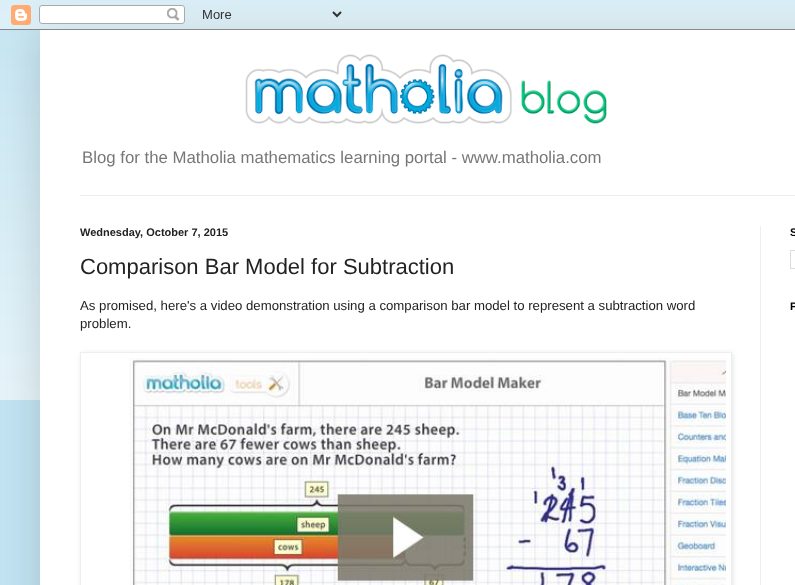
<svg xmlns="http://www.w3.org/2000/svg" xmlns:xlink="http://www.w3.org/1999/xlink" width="795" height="585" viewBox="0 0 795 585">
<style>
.cls-1{font:16.8px Liberation Sans;fill:#777777}
.cls-2{font:bold 11px Liberation Sans;fill:#222222}
.cls-3{font:22px Liberation Sans;fill:#222222}
.cls-4{font:13.2px Liberation Sans;fill:#222222}
.cls-5{font:bold 11px Liberation Sans;fill:#000000}
</style>
<defs>
<clipPath id="clip1"><path d="M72 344H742V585H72ZM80 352H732V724H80Z" clip-rule="evenodd"/></clipPath>
</defs>
<rect width="100%" height="100%" fill="#c2e4f2"/>
<image xlink:href="image1.png" x="0" y="10" width="795" height="390"/>
<rect fill="#000000" fill-opacity="0.15" filter="blur(20px)" x="40" y="30" width="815" height="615"/>
<image xlink:href="image0.png" x="0" y="0" width="795" height="30"/>
<rect fill="#ffffff" x="40" y="30" width="755" height="555"/>
<image xlink:href="image2.png" x="245" y="54" width="362" height="70"/>
<rect fill="#eeeeee" x="80" y="195" width="715" height="1"/>
<rect fill="#eeeeee" x="760" y="226" width="1" height="359"/>
<g clip-path="url(#clip1)">
<rect fill="#000000" fill-opacity="0.1" filter="blur(2.5px)" x="81" y="353" width="652" height="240"/>
</g>
<rect fill="none" stroke="#eeeeee" x="80.5" y="352.5" width="651" height="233"/>
<image xlink:href="image3.png" x="129" y="358" width="597" height="227"/>
<rect fill="none" stroke="#dddddd" x="790.5" y="250.5" width="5" height="18"/>
<text class="cls-1" x="82" y="163">Blog for the Matholia mathematics learning portal - www.matholia.com</text>
<text class="cls-2" x="80" y="236">Wednesday, October 7, 2015</text>
<text class="cls-3" x="80" y="274">Comparison Bar Model for Subtraction</text>
<text class="cls-4"><tspan x="80" y="310">As promised, here's a video demonstration using a comparison bar model to represent a subtraction word</tspan><tspan x="80" y="328">problem.</tspan></text>
<text class="cls-5" x="790" y="236">S</text>
<text class="cls-5" x="790" y="310">P</text>
</svg>
